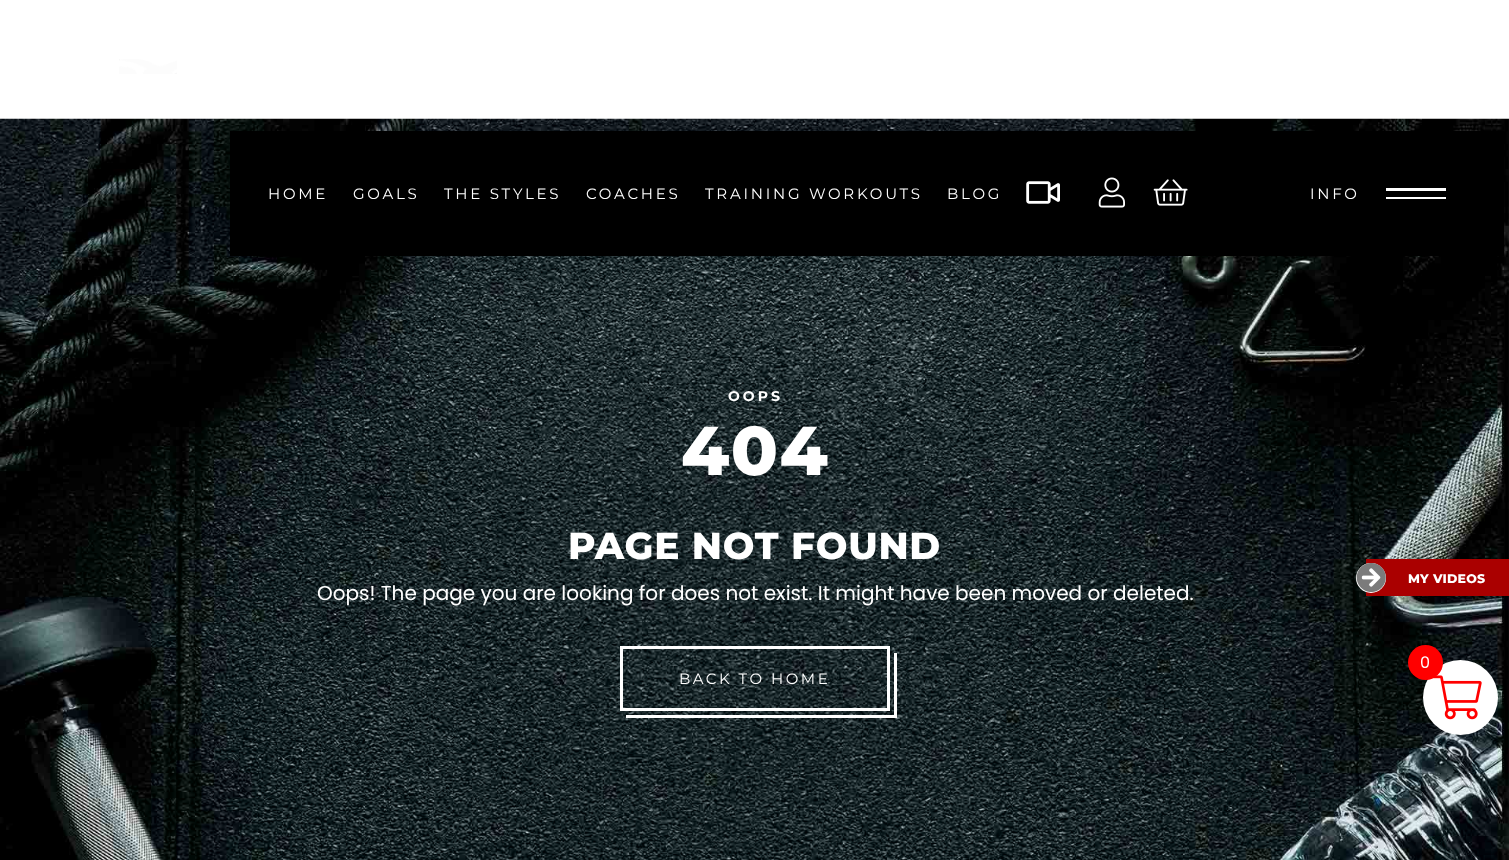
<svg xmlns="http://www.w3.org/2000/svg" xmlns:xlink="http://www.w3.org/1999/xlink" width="1509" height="860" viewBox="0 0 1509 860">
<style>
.cls-1{font:15px Montserrat;letter-spacing:2.75px;fill:#ffffff}
.cls-2{font:bold 14px Montserrat;letter-spacing:3px;fill:#ffffff}
.cls-3{font:800 69px Montserrat;letter-spacing:1.5px;fill:#ffffff}
.cls-4{font:800 37.5px Montserrat;letter-spacing:0.75px;fill:#ffffff}
.cls-5{font:20px Poppins;fill:#ffffff}
.cls-6{font:15px Montserrat;letter-spacing:2.5px;fill:#ffffff}
.cls-7{font:800 12.5px Montserrat;letter-spacing:0.25px;fill:#ffffff}
.cls-8{font:16px Poppins;fill:#ffffff}
</style>
<rect width="100%" height="100%" fill="#ffffff"/>
<image xlink:href="image0.png" x="119" y="59" width="58" height="15"/>
<image xlink:href="image4.png" x="0" y="118" width="1509" height="742"/>
<rect fill="#000000" x="230" y="131" width="1274" height="125"/>
<image xlink:href="image1.png" x="1026" y="181" width="34" height="23"/>
<image xlink:href="image2.png" x="1098" y="177" width="27" height="31"/>
<image xlink:href="image3.png" x="1153" y="179" width="35" height="27"/>
<rect fill="#ffffff" x="1386" y="188" width="60" height="3"/>
<rect fill="#ffffff" x="1386" y="197" width="60" height="2"/>
<rect fill="none" stroke="#ffffff" stroke-width="3" x="621.5" y="647.5" width="267" height="62"/>
<rect fill="#ffffff" x="894" y="653" width="3" height="65"/>
<rect fill="#ffffff" x="626" y="715" width="270" height="3"/>
<rect fill="#aa0000" x="1366" y="559" width="143" height="37"/>
<circle fill="#ffffff" cx="1371" cy="578" r="15"/>
<image xlink:href="image5.png" x="1356" y="563" width="30" height="29"/>
<rect fill="#000000" fill-opacity="0.1" filter="blur(9.5px)" x="1420" y="658" width="80" height="80" rx="40"/>
<circle fill="#ffffff" cx="1460.5" cy="697.5" r="37.5"/>
<image xlink:href="image6.png" x="1433" y="675" width="49" height="45"/>
<circle fill="#ff0000" cx="1425.5" cy="662.5" r="17.5"/>
<text class="cls-1" x="268" y="199">HOME</text>
<text class="cls-1" x="353" y="199">GOALS</text>
<text class="cls-1" x="444" y="199">THE STYLES</text>
<text class="cls-1" x="586" y="199">COACHES</text>
<text class="cls-1" x="705" y="199">TRAINING WORKOUTS</text>
<text class="cls-1" x="947" y="199">BLOG</text>
<text class="cls-1" x="1310" y="199">INFO</text>
<text class="cls-2" x="728" y="401">OOPS</text>
<text class="cls-3" x="681" y="475">404</text>
<text class="cls-4" x="568" y="559">PAGE NOT FOUND</text>
<text class="cls-5" x="317" y="600">Oops! The page you are looking for does not exist. It might have been moved or deleted.</text>
<text class="cls-6" x="679" y="684">BACK TO HOME</text>
<text class="cls-7" x="1408" y="583">MY VIDEOS</text>
<text class="cls-8" x="1420" y="668">0</text>
</svg>
